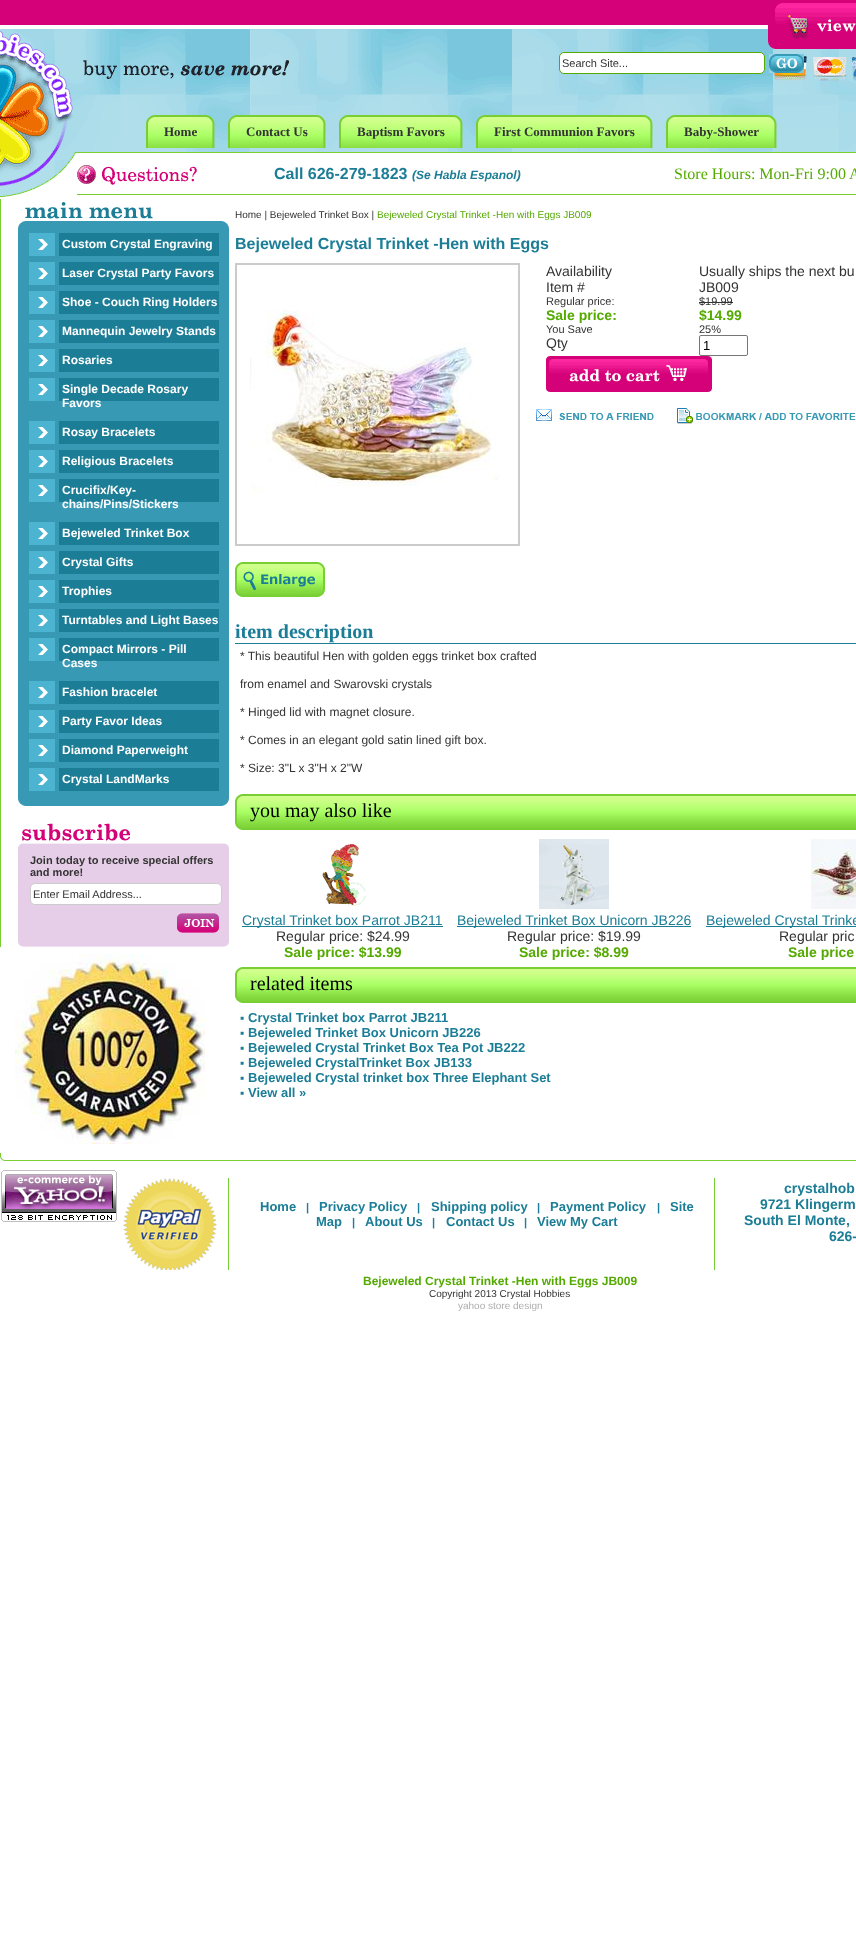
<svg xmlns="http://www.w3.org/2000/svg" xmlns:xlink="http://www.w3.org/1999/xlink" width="856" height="1947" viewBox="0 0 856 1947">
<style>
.cls-1{font:11px Liberation Sans;fill:#333333}
.cls-2{font:bold 13px Liberation Serif;fill:#333333}
.cls-3{font:bold 16px Liberation Sans;fill:#1b7d96}
.cls-4{font:italic bold 12px Liberation Sans;fill:#1b7d96}
.cls-5{font:16px Liberation Serif;fill:#54aa00}
.cls-6{font:bold 12px Liberation Sans;fill:#ffffff}
.cls-7{font:bold 11px Liberation Sans;fill:#333333}
.cls-8{font:10px Liberation Sans;fill:#333333}
.cls-9{font:10px Liberation Sans;fill:#54aa00}
.cls-10{font:14px Liberation Sans;fill:#333333}
.cls-11{font:bold 14px Liberation Sans;fill:#54aa00}
.cls-12{font:13px Liberation Sans;fill:#000000}
.cls-13{font:bold 20px Liberation Serif;fill:#1b7d96}
.cls-14{font:12px Liberation Sans;fill:#333333}
.cls-15{font:20px Liberation Serif;fill:#000000}
.cls-16{font:14px Liberation Sans;fill:#1b7d96}
.cls-17{font:bold 12px Liberation Sans;fill:#1b7d96}
.cls-18{font:bold 13px Liberation Sans;fill:#1b7d96}
.cls-19{font:bold 11px Liberation Sans;fill:#1b7d96}
.cls-20{font:bold 14px Liberation Sans;fill:#1b7d96}
.cls-21{font:bold 12px Liberation Sans;fill:#54aa00}
.cls-22{font:10px Liberation Sans;fill:#aeaeae}
</style>
<rect width="100%" height="100%" fill="#ffffff"/>
<image xlink:href="image0.png" x="0" y="0" width="856" height="3"/>
<image xlink:href="image1.png" x="0" y="3" width="856" height="196"/>
<rect fill="#ffffff" stroke="#54aa00" x="559.5" y="52.5" width="205" height="21" rx="4.5"/>
<image xlink:href="image2.png" x="769" y="54" width="35" height="19"/>
<image xlink:href="image3.png" x="146" y="115" width="8" height="33"/>
<image xlink:href="image4.png" x="154" y="115" width="62" height="33"/>
<image xlink:href="image5.png" x="228" y="115" width="8" height="33"/>
<image xlink:href="image6.png" x="236" y="115" width="90" height="33"/>
<image xlink:href="image7.png" x="339" y="115" width="8" height="33"/>
<image xlink:href="image8.png" x="347" y="115" width="116" height="33"/>
<image xlink:href="image5.png" x="476" y="115" width="8" height="33"/>
<image xlink:href="image9.png" x="484" y="115" width="169" height="33"/>
<image xlink:href="image10.png" x="666" y="115" width="8" height="33"/>
<image xlink:href="image11.png" x="674" y="115" width="104" height="33"/>
<image xlink:href="image12.png" x="0" y="199" width="229" height="34"/>
<image xlink:href="image13.png" x="0" y="233" width="229" height="564"/>
<image xlink:href="image14.png" x="29" y="233" width="190" height="23"/>
<image xlink:href="image14.png" x="29" y="262" width="190" height="23"/>
<image xlink:href="image14.png" x="29" y="291" width="190" height="23"/>
<image xlink:href="image14.png" x="29" y="320" width="190" height="23"/>
<image xlink:href="image14.png" x="29" y="349" width="190" height="23"/>
<image xlink:href="image14.png" x="29" y="378" width="190" height="23"/>
<image xlink:href="image14.png" x="29" y="421" width="190" height="23"/>
<image xlink:href="image14.png" x="29" y="450" width="190" height="23"/>
<image xlink:href="image14.png" x="29" y="479" width="190" height="23"/>
<image xlink:href="image14.png" x="29" y="522" width="190" height="23"/>
<image xlink:href="image14.png" x="29" y="551" width="190" height="23"/>
<image xlink:href="image14.png" x="29" y="580" width="190" height="23"/>
<image xlink:href="image14.png" x="29" y="609" width="190" height="23"/>
<image xlink:href="image14.png" x="29" y="638" width="190" height="23"/>
<image xlink:href="image14.png" x="29" y="681" width="190" height="23"/>
<image xlink:href="image14.png" x="29" y="710" width="190" height="23"/>
<image xlink:href="image14.png" x="29" y="739" width="190" height="23"/>
<image xlink:href="image14.png" x="29" y="768" width="190" height="23"/>
<image xlink:href="image15.png" x="0" y="797" width="229" height="150"/>
<rect fill="#ffffff" stroke="#cccccc" x="30.5" y="883.5" width="191" height="21" rx="4.5"/>
<image xlink:href="image16.png" x="177" y="913" width="42" height="20"/>
<image xlink:href="image17.png" x="15" y="954" width="190" height="190"/>
<rect fill="none" stroke="#cbcbcb" stroke-width="2" x="236" y="264" width="283" height="281"/>
<image xlink:href="image18.png" x="250" y="310" width="250" height="182"/>
<image xlink:href="image19.png" x="235" y="562" width="90" height="35"/>
<rect fill="#333333" x="699" y="302" width="34" height="1"/>
<rect fill="none" stroke="#767676" x="699.5" y="335.5" width="48" height="20" rx="1.5"/>
<image xlink:href="image20.png" x="546" y="356" width="166" height="36"/>
<image xlink:href="image21.png" x="536" y="409" width="118" height="12"/>
<image xlink:href="image22.png" x="677" y="408" width="179" height="16"/>
<rect fill="#1b7d96" x="235" y="643" width="621" height="1"/>
<image xlink:href="image23.png" x="235" y="794" width="621" height="36"/>
<image xlink:href="image24.png" x="322" y="844" width="44" height="62"/>
<rect fill="#1b7d96" x="242" y="926" width="201" height="1"/>
<image xlink:href="image25.png" x="539" y="839" width="70" height="70"/>
<rect fill="#1b7d96" x="457" y="926" width="234" height="1"/>
<image xlink:href="image26.png" x="811" y="839" width="45" height="70"/>
<rect fill="#1b7d96" x="706" y="926" width="150" height="1"/>
<image xlink:href="image23.png" x="235" y="967" width="621" height="36"/>
<image xlink:href="image27.png" x="0" y="1153" width="856" height="117"/>
<text class="cls-1" x="562" y="67">Search Site...</text>
<text class="cls-2" x="164" y="136">Home</text>
<text class="cls-2" x="246" y="136">Contact Us</text>
<text class="cls-2" x="357" y="136">Baptism Favors</text>
<text class="cls-2" x="494" y="136">First Communion Favors</text>
<text class="cls-2" x="684" y="136">Baby-Shower</text>
<text class="cls-3" x="274" y="179">Call 626-279-1823</text>
<text class="cls-4" x="412" y="179">(Se Habla Espanol)</text>
<text class="cls-5" x="674" y="179">Store Hours: Mon-Fri 9:00 A</text>
<text class="cls-6" x="62" y="248">Custom Crystal Engraving</text>
<text class="cls-6" x="62" y="277">Laser Crystal Party Favors</text>
<text class="cls-6" x="62" y="306">Shoe - Couch Ring Holders</text>
<text class="cls-6" x="62" y="335">Mannequin Jewelry Stands</text>
<text class="cls-6" x="62" y="364">Rosaries</text>
<text class="cls-6"><tspan x="62" y="393">Single Decade Rosary</tspan><tspan x="62" y="407">Favors</tspan></text>
<text class="cls-6" x="62" y="436">Rosay Bracelets</text>
<text class="cls-6" x="62" y="465">Religious Bracelets</text>
<text class="cls-6"><tspan x="62" y="494">Crucifix/Key-</tspan><tspan x="62" y="508">chains/Pins/Stickers</tspan></text>
<text class="cls-6" x="62" y="537">Bejeweled Trinket Box</text>
<text class="cls-6" x="62" y="566">Crystal Gifts</text>
<text class="cls-6" x="62" y="595">Trophies</text>
<text class="cls-6" x="62" y="624">Turntables and Light Bases</text>
<text class="cls-6"><tspan x="62" y="653">Compact Mirrors - Pill</tspan><tspan x="62" y="667">Cases</tspan></text>
<text class="cls-6" x="62" y="696">Fashion bracelet</text>
<text class="cls-6" x="62" y="725">Party Favor Ideas</text>
<text class="cls-6" x="62" y="754">Diamond Paperweight</text>
<text class="cls-6" x="62" y="783">Crystal LandMarks</text>
<text class="cls-7"><tspan x="30" y="864">Join today to receive special offers</tspan><tspan x="30" y="876">and more!</tspan></text>
<text class="cls-1" x="33" y="898">Enter Email Address...</text>
<text class="cls-8" x="235" y="218">Home | Bejeweled Trinket Box |</text>
<text class="cls-9" x="377" y="218">Bejeweled Crystal Trinket -Hen with Eggs JB009</text>
<text class="cls-3" x="235" y="249">Bejeweled Crystal Trinket -Hen with Eggs</text>
<text class="cls-10" x="546" y="276">Availability</text>
<text class="cls-10" x="699" y="276">Usually ships the next bu</text>
<text class="cls-10" x="546" y="292">Item #</text>
<text class="cls-10" x="699" y="292">JB009</text>
<text class="cls-1" x="546" y="305">Regular price:</text>
<text class="cls-1" x="699" y="305">$19.99</text>
<text class="cls-11" x="546" y="320">Sale price:</text>
<text class="cls-11" x="699" y="320">$14.99</text>
<text class="cls-1" x="546" y="333">You Save</text>
<text class="cls-1" x="699" y="333">25%</text>
<text class="cls-10" x="546" y="348">Qty</text>
<text class="cls-12" x="703" y="350">1</text>
<text class="cls-13" x="235" y="638">item description</text>
<text class="cls-14" x="240" y="660">* This beautiful Hen with golden eggs trinket box crafted</text>
<text class="cls-14" x="240" y="688">from enamel and Swarovski crystals</text>
<text class="cls-14" x="240" y="716">* Hinged lid with magnet closure.</text>
<text class="cls-14" x="240" y="744">* Comes in an elegant gold satin lined gift box.</text>
<text class="cls-14" x="240" y="772">* Size: 3"L x 3"H x 2"W</text>
<text class="cls-15" x="250" y="817">you may also like</text>
<text class="cls-16" x="242" y="925">Crystal Trinket box Parrot JB211</text>
<text class="cls-10" x="276" y="941">Regular price: $24.99</text>
<text class="cls-11" x="284" y="957">Sale price: $13.99</text>
<text class="cls-16" x="457" y="925">Bejeweled Trinket Box Unicorn JB226</text>
<text class="cls-10" x="507" y="941">Regular price: $19.99</text>
<text class="cls-11" x="519" y="957">Sale price: $8.99</text>
<text class="cls-16" x="706" y="925">Bejeweled Crystal Trinke</text>
<text class="cls-10" x="779" y="941">Regular pric</text>
<text class="cls-11" x="788" y="957">Sale price</text>
<text class="cls-15" x="250" y="990">related items</text>
<text class="cls-17" x="240" y="1022">▪</text>
<text class="cls-18" x="248" y="1022">Crystal Trinket box Parrot JB211</text>
<text class="cls-17" x="240" y="1037">▪</text>
<text class="cls-18" x="248" y="1037">Bejeweled Trinket Box Unicorn JB226</text>
<text class="cls-17" x="240" y="1052">▪</text>
<text class="cls-18" x="248" y="1052">Bejeweled Crystal Trinket Box Tea Pot JB222</text>
<text class="cls-17" x="240" y="1067">▪</text>
<text class="cls-18" x="248" y="1067">Bejeweled CrystalTrinket Box JB133</text>
<text class="cls-17" x="240" y="1082">▪</text>
<text class="cls-18" x="248" y="1082">Bejeweled Crystal trinket box Three Elephant Set</text>
<text class="cls-17" x="240" y="1097">▪</text>
<text class="cls-18" x="248" y="1097">View all »</text>
<text class="cls-18" x="260" y="1211">Home</text>
<text class="cls-19" x="306" y="1211">|</text>
<text class="cls-18" x="319" y="1211">Privacy Policy</text>
<text class="cls-19" x="417" y="1211">|</text>
<text class="cls-18" x="431" y="1211">Shipping policy</text>
<text class="cls-19" x="537" y="1211">|</text>
<text class="cls-18" x="550" y="1211">Payment Policy</text>
<text class="cls-19" x="657" y="1211">|</text>
<text class="cls-18" x="670" y="1211">Site</text>
<text class="cls-18" x="316" y="1226">Map</text>
<text class="cls-19" x="352" y="1226">|</text>
<text class="cls-18" x="365" y="1226">About Us</text>
<text class="cls-19" x="432" y="1226">|</text>
<text class="cls-18" x="446" y="1226">Contact Us</text>
<text class="cls-19" x="524" y="1226">|</text>
<text class="cls-18" x="537" y="1226">View My Cart</text>
<text class="cls-20" x="784" y="1193">crystalhob</text>
<text class="cls-20" x="760" y="1209">9721 Klingerm</text>
<text class="cls-20" x="744" y="1225">South El Monte,</text>
<text class="cls-20" x="829" y="1241">626-</text>
<text class="cls-21" x="363" y="1285">Bejeweled Crystal Trinket -Hen with Eggs JB009</text>
<text class="cls-8" x="429" y="1297">Copyright 2013 Crystal Hobbies</text>
<text class="cls-22" x="458" y="1309">yahoo store design</text>
</svg>
